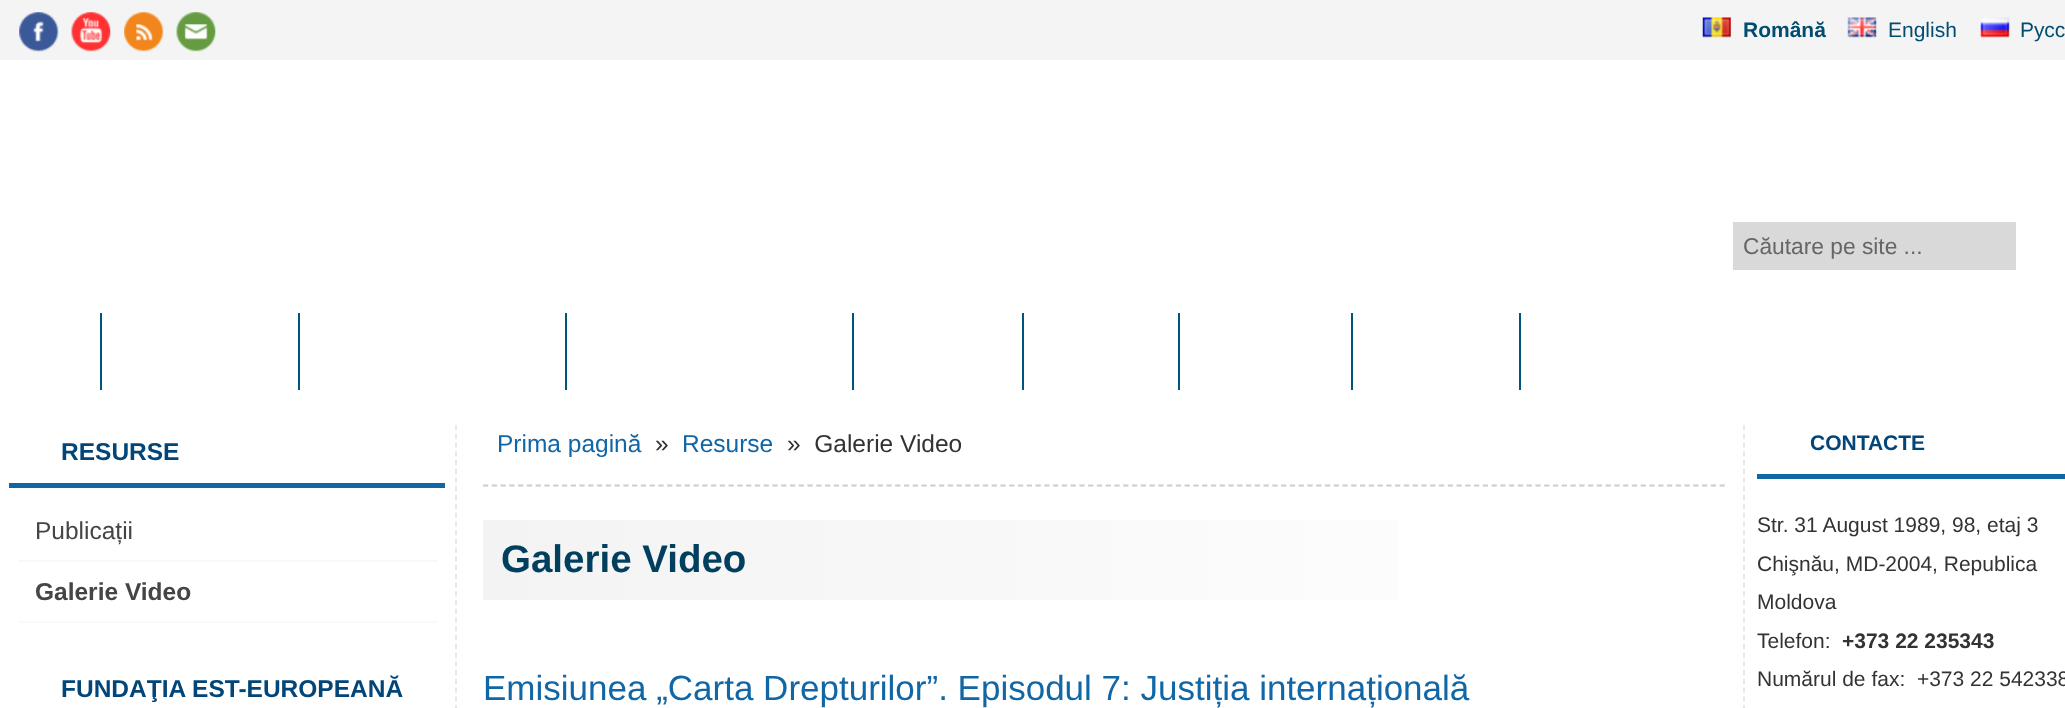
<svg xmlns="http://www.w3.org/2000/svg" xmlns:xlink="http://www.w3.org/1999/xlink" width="2065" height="708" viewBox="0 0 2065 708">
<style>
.cls-1{font:bold 21px Liberation Sans;fill:#004d71}
.cls-2{font:21px Liberation Sans;fill:#004d71}
.cls-3{font:22.75px Liberation Sans;fill:#666666}
.cls-4{font:bold 24.5px Liberation Sans;fill:#014579}
.cls-5{font:24.5px Liberation Sans;fill:#454545}
.cls-6{font:bold 24.5px Liberation Sans;fill:#454545}
.cls-7{font:24.5px Liberation Sans;fill:#1166a6}
.cls-8{font:24.5px Liberation Sans;fill:#333333}
.cls-9{font:bold 38.5px Liberation Sans;fill:#003f5e}
.cls-10{font:35px Liberation Sans;fill:#1166a6}
.cls-11{font:bold 21px Liberation Sans;fill:#014579}
.cls-12{font:21px Liberation Sans;fill:#333333}
.cls-13{font:bold 21px Liberation Sans;fill:#333333}
</style>
<defs>
<linearGradient id="g1" gradientUnits="userSpaceOnUse" x1="483" y1="560" x2="1638" y2="560"><stop offset="0" stop-color="#f3f3f3"/><stop offset="1" stop-color="#ffffff"/></linearGradient>
</defs>
<rect width="100%" height="100%" fill="#ffffff"/>
<rect fill="#f4f4f4" x="0" y="0" width="2065" height="60"/>
<image xlink:href="image0.png" x="19" y="12" width="40" height="40"/>
<image xlink:href="image1.png" x="71" y="12" width="40" height="40"/>
<image xlink:href="image2.png" x="124" y="12" width="40" height="40"/>
<image xlink:href="image3.png" x="176" y="12" width="40" height="40"/>
<image xlink:href="image4.png" x="1702" y="17" width="29" height="21"/>
<image xlink:href="image5.png" x="1847" y="17" width="30" height="21"/>
<image xlink:href="image6.png" x="1980" y="17" width="30" height="21"/>
<rect fill="#d9d9d9" x="1733" y="222" width="283" height="48"/>
<rect fill="#00557d" x="100" y="313" width="2" height="77"/>
<rect fill="#00557d" x="298" y="313" width="2" height="77"/>
<rect fill="#00557d" x="565" y="313" width="2" height="77"/>
<rect fill="#00557d" x="852" y="313" width="2" height="77"/>
<rect fill="#00557d" x="1022" y="313" width="2" height="77"/>
<rect fill="#00557d" x="1178" y="313" width="2" height="77"/>
<rect fill="#00557d" x="1351" y="313" width="2" height="77"/>
<rect fill="#00557d" x="1519" y="313" width="2" height="77"/>
<rect fill="#1166a6" x="9" y="483" width="436" height="5"/>
<rect fill="#f9f9f9" x="18" y="560" width="420" height="2"/>
<rect fill="#f9f9f9" x="18" y="621" width="420" height="2"/>
<path fill="none" stroke="#e6e6e6" stroke-width="1.8" stroke-dasharray="5.25 3.5" d="M1744 425V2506"/>
<path fill="none" stroke="#e6e6e6" stroke-width="1.8" stroke-dasharray="5.25 3.5" d="M456 425V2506"/>
<path fill="none" stroke="#cccccc" stroke-width="1.8" stroke-dasharray="5.25 3.52" d="M483 485.5H1725.5"/>
<rect fill="url(#g1)" x="483" y="520" width="914" height="80"/>
<rect fill="#1166a6" x="1757" y="474" width="308" height="5"/>
<text class="cls-1" x="1743" y="37">Română</text>
<text class="cls-2" x="1888" y="37">English</text>
<text class="cls-2" x="2020" y="37">Русс</text>
<text class="cls-3" x="1743" y="254">Căutare pe site ...</text>
<text class="cls-4" x="61" y="460">RESURSE</text>
<text class="cls-5" x="35" y="539">Publicații</text>
<text class="cls-6" x="35" y="600">Galerie Video</text>
<text class="cls-4" x="61" y="697">FUNDAŢIA EST-EUROPEANĂ</text>
<text class="cls-7" x="497" y="452">Prima pagină</text>
<text class="cls-8" x="655" y="452">»</text>
<text class="cls-7" x="682" y="452">Resurse</text>
<text class="cls-8" xml:space="preserve" x="787" y="452">»  Galerie Video</text>
<text class="cls-9" x="501" y="572">Galerie Video</text>
<text class="cls-10" x="483" y="700">Emisiunea „Carta Drepturilor”. Episodul 7: Justiția internațională</text>
<text class="cls-11" x="1810" y="450">CONTACTE</text>
<text class="cls-12"><tspan x="1757" y="532">Str. 31 August 1989, 98, etaj 3</tspan><tspan x="1757" y="571">Chişnău, MD-2004, Republica</tspan><tspan x="1757" y="609">Moldova</tspan><tspan x="1757" y="648">Telefon:</tspan></text>
<text class="cls-13" x="1842" y="648">+373 22 235343</text>
<text class="cls-12" xml:space="preserve" x="1757" y="686">Numărul de fax:  +373 22 542338</text>
</svg>
